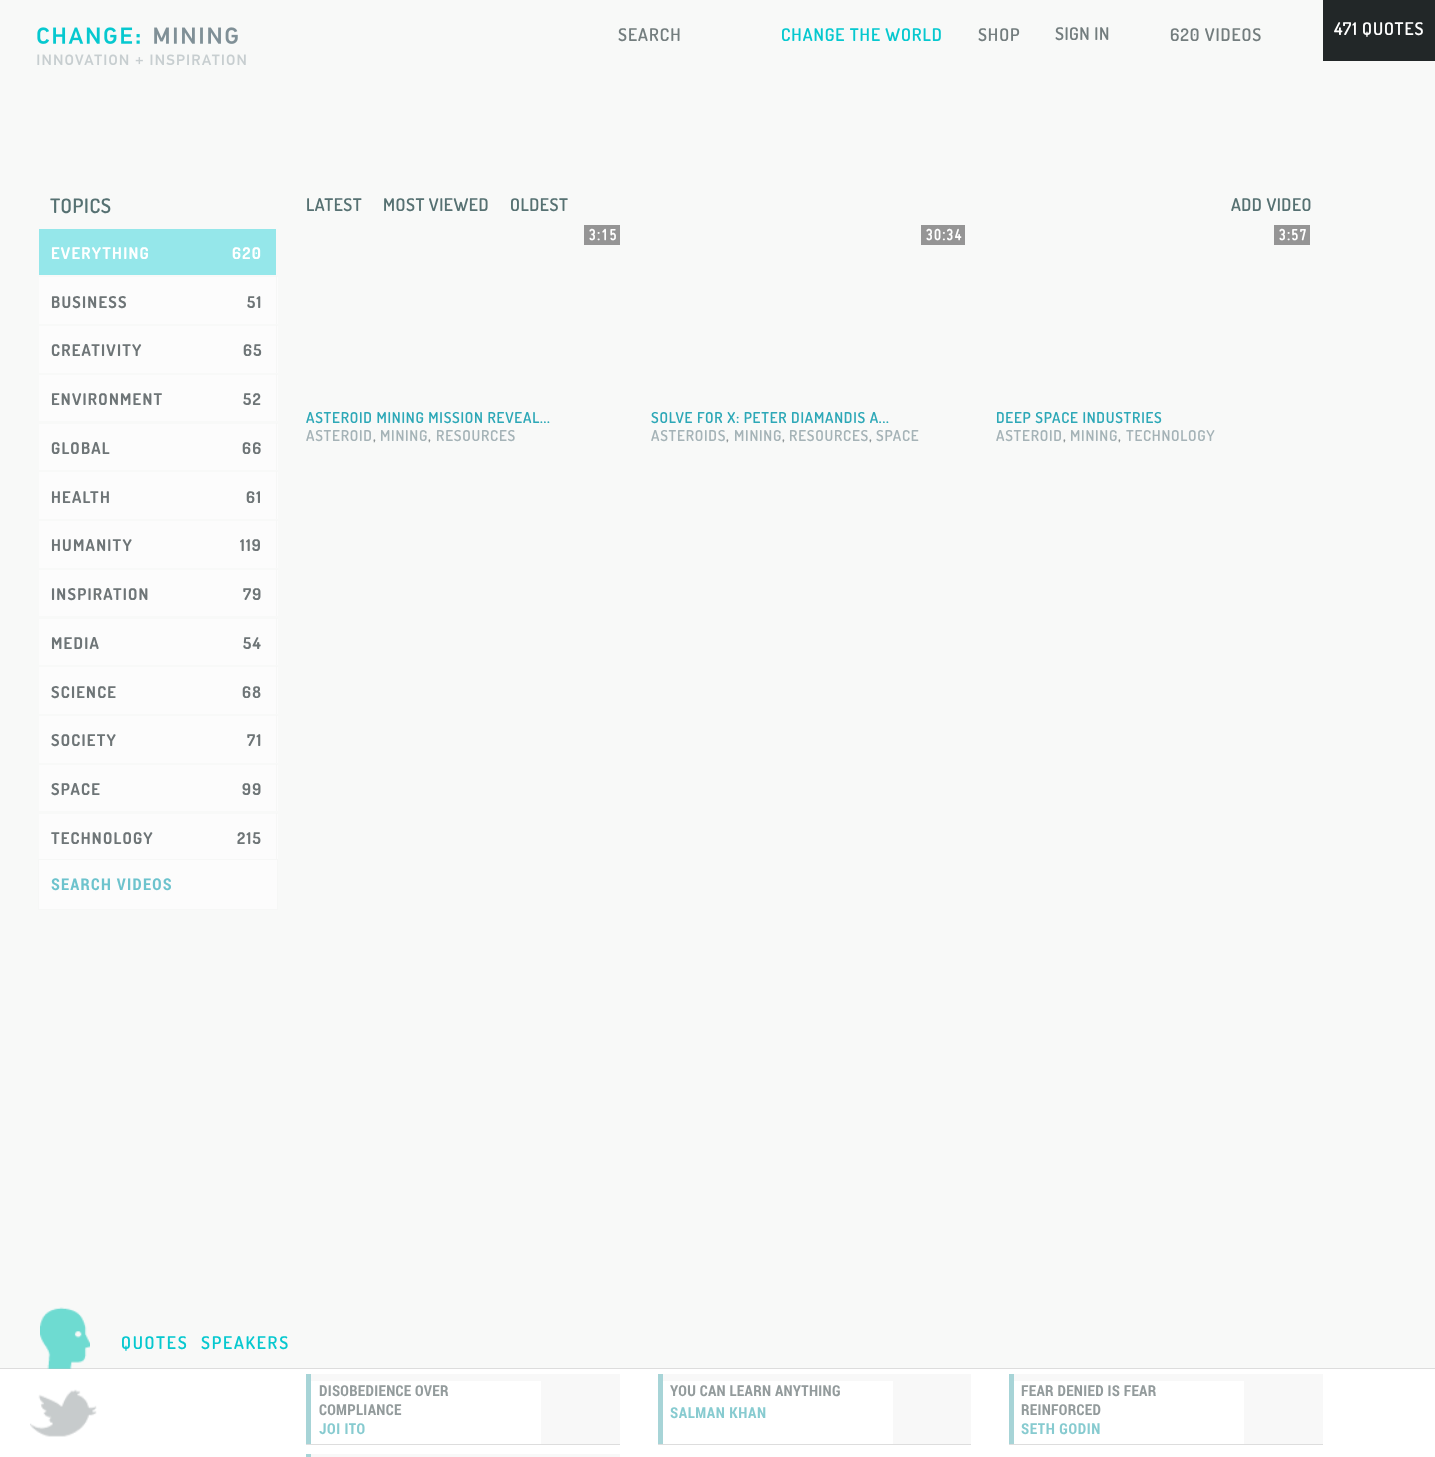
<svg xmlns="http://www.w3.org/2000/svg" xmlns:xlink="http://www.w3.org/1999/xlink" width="1435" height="1457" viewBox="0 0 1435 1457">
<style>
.cls-1{font:600 17.5px Dosis;letter-spacing:1px;fill:#737d7e}
.cls-2{font:600 17.5px Dosis;letter-spacing:0.9px;fill:#06c8cf}
.cls-3{font:600 17.5px Dosis;letter-spacing:0.9px;fill:#737d7e}
.cls-4{font:600 17.5px Dosis;letter-spacing:0.5px;fill:#737d7e}
.cls-5{font:600 17.5px Dosis;letter-spacing:0.9px;fill:#ffffff}
.cls-6{font:600 20px Dosis;letter-spacing:0.6px;fill:#567172}
.cls-7{font:bold 16.25px Dosis;letter-spacing:1.25px;fill:#ffffff}
.cls-8{font:bold 16.25px Dosis;letter-spacing:1.25px;fill:#6e7577}
.cls-9{font:bold 16.25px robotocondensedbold;letter-spacing:1.25px;fill:#6dc3cd}
.cls-10{font:600 17.5px Dosis;letter-spacing:0.5px;fill:#567172}
.cls-11{font:bold 17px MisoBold;letter-spacing:1px;fill:#ffffff}
.cls-12{font:600 15px Dosis;letter-spacing:0.75px;fill:#2da8b7}
.cls-13{font:600 15px Dosis;letter-spacing:0.75px;fill:#a5b3b7}
.cls-14{font:600 15px Dosis;letter-spacing:0.75px;fill:#8c9395}
.cls-15{font:600 17.5px Dosis;letter-spacing:1.75px;fill:#06c8cf}
.cls-16{font:bold 15px robotocondensedbold;letter-spacing:0.3px;fill:#939b9c}
.cls-17{font:bold 15px robotocondensedbold;letter-spacing:0.6px;fill:#87cbd0}
</style>
<defs>
<clipPath id="clip1"><path d="M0 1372H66V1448H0ZM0 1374H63V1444H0Z" clip-rule="evenodd"/></clipPath>
</defs>
<rect width="100%" height="100%" fill="#f8f9f8"/>
<rect fill="#fcfcfc" x="39" y="860" width="238" height="49"/>
<image xlink:href="image0.png" x="37" y="27" width="96" height="17"/>
<image xlink:href="image1.png" x="136" y="34" width="4" height="10"/>
<image xlink:href="image2.png" x="154" y="27" width="84" height="17"/>
<image xlink:href="image3.png" x="37" y="54" width="209" height="11"/>
<rect fill="#222728" x="1323" y="0" width="112" height="61"/>
<rect fill="#95e7ea" x="39" y="229" width="237" height="46"/>
<rect fill="#fcfcfc" x="39" y="277" width="239" height="47"/>
<rect fill="#f6f7f6" x="276" y="276" width="1" height="48"/>
<rect fill="#fcfcfc" x="39" y="326" width="239" height="47"/>
<rect fill="#f6f7f6" x="276" y="325" width="1" height="48"/>
<rect fill="#fcfcfc" x="39" y="375" width="239" height="46"/>
<rect fill="#f6f7f6" x="276" y="374" width="1" height="47"/>
<rect fill="#fcfcfc" x="39" y="424" width="239" height="46"/>
<rect fill="#f6f7f6" x="276" y="423" width="1" height="47"/>
<rect fill="#fcfcfc" x="39" y="472" width="239" height="47"/>
<rect fill="#f6f7f6" x="276" y="471" width="1" height="48"/>
<rect fill="#fcfcfc" x="39" y="521" width="239" height="47"/>
<rect fill="#f6f7f6" x="276" y="520" width="1" height="48"/>
<rect fill="#fcfcfc" x="39" y="570" width="239" height="46"/>
<rect fill="#f6f7f6" x="276" y="569" width="1" height="47"/>
<rect fill="#fcfcfc" x="39" y="619" width="239" height="46"/>
<rect fill="#f6f7f6" x="276" y="618" width="1" height="47"/>
<rect fill="#fcfcfc" x="39" y="667" width="239" height="47"/>
<rect fill="#f6f7f6" x="276" y="666" width="1" height="48"/>
<rect fill="#fcfcfc" x="39" y="716" width="239" height="47"/>
<rect fill="#f6f7f6" x="276" y="715" width="1" height="48"/>
<rect fill="#fcfcfc" x="39" y="765" width="239" height="46"/>
<rect fill="#f6f7f6" x="276" y="764" width="1" height="47"/>
<rect fill="#fcfcfc" x="39" y="814" width="239" height="45"/>
<rect fill="#f6f7f6" x="276" y="813" width="1" height="47"/>
<rect fill="#fbfbfb" x="38" y="860" width="1" height="1"/>
<rect fill="none" stroke="#f6f7f6" x="38.5" y="859.5" width="239" height="50"/>
<rect fill="#959595" x="584" y="225" width="36" height="20"/>
<rect fill="#959595" x="921" y="225" width="44" height="20"/>
<rect fill="#959595" x="1274" y="225" width="36" height="20"/>
<rect fill="#dddddd" x="0" y="1368" width="1435" height="1"/>
<image xlink:href="image4.png" x="40" y="1307" width="50" height="62"/>
<rect fill="#ffffff" x="0" y="1369" width="1435" height="88"/>
<g clip-path="url(#clip1)">
<rect fill="#eeeeee" filter="blur(0.5px)" x="0" y="1375" width="63" height="70"/>
</g>
<rect fill="#ffffff" x="0" y="1381" width="63" height="64"/>
<image xlink:href="image5.png" x="30" y="1389" width="67" height="48"/>
<rect fill="#dddddd" filter="blur(0.5px)" x="306" y="1375" width="314" height="70"/>
<rect fill="#f8f8f8" x="311" y="1374" width="309" height="70"/>
<rect fill="#a7d4d7" x="306" y="1374" width="5" height="70"/>
<rect fill="#ffffff" x="311" y="1381" width="230" height="63"/>
<rect fill="#dddddd" filter="blur(0.5px)" x="658" y="1375" width="313" height="70"/>
<rect fill="#f8f8f8" x="663" y="1374" width="308" height="70"/>
<rect fill="#a7d4d7" x="658" y="1374" width="5" height="70"/>
<rect fill="#ffffff" x="663" y="1381" width="230" height="63"/>
<rect fill="#dddddd" filter="blur(0.5px)" x="1009" y="1375" width="314" height="70"/>
<rect fill="#f8f8f8" x="1014" y="1374" width="309" height="70"/>
<rect fill="#a7d4d7" x="1009" y="1374" width="5" height="70"/>
<rect fill="#ffffff" x="1014" y="1381" width="230" height="63"/>
<rect fill="#dddddd" filter="blur(0.5px)" x="306" y="1455" width="314" height="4"/>
<rect fill="#f8f8f8" x="311" y="1454" width="309" height="3"/>
<rect fill="#a7d4d7" x="306" y="1454" width="5" height="3"/>
<text class="cls-1" x="618" y="41">SEARCH</text>
<text class="cls-2" x="781" y="41">CHANGE THE WORLD</text>
<text class="cls-3" x="978" y="41">SHOP</text>
<text class="cls-4" x="1055" y="40">SIGN IN</text>
<text class="cls-3" x="1170" y="41">620 VIDEOS</text>
<text class="cls-5" x="1334" y="35">471 QUOTES</text>
<text class="cls-6" x="50" y="213">TOPICS</text>
<text class="cls-7" x="51" y="259">EVERYTHING</text>
<text class="cls-7" x="232" y="259">620</text>
<text class="cls-8" x="51" y="308">BUSINESS</text>
<text class="cls-8" x="247" y="308">51</text>
<text class="cls-8" x="51" y="356">CREATIVITY</text>
<text class="cls-8" x="243" y="356">65</text>
<text class="cls-8" x="51" y="405">ENVIRONMENT</text>
<text class="cls-8" x="243" y="405">52</text>
<text class="cls-8" x="51" y="454">GLOBAL</text>
<text class="cls-8" x="242" y="454">66</text>
<text class="cls-8" x="51" y="503">HEALTH</text>
<text class="cls-8" x="246" y="503">61</text>
<text class="cls-8" x="51" y="551">HUMANITY</text>
<text class="cls-8" x="240" y="551">119</text>
<text class="cls-8" x="51" y="600">INSPIRATION</text>
<text class="cls-8" x="243" y="600">79</text>
<text class="cls-8" x="51" y="649">MEDIA</text>
<text class="cls-8" x="243" y="649">54</text>
<text class="cls-8" x="51" y="698">SCIENCE</text>
<text class="cls-8" x="242" y="698">68</text>
<text class="cls-8" x="51" y="746">SOCIETY</text>
<text class="cls-8" x="247" y="746">71</text>
<text class="cls-8" x="51" y="795">SPACE</text>
<text class="cls-8" x="242" y="795">99</text>
<text class="cls-8" x="51" y="844">TECHNOLOGY</text>
<text class="cls-8" x="237" y="844">215</text>
<text class="cls-9" x="51" y="890">SEARCH VIDEOS</text>
<text class="cls-10" x="306" y="211">LATEST</text>
<text class="cls-10" x="383" y="211">MOST VIEWED</text>
<text class="cls-10" x="510" y="211">OLDEST</text>
<text class="cls-10" x="1231" y="211">ADD VIDEO</text>
<text class="cls-11" x="589" y="240">3:15</text>
<text class="cls-12" x="306" y="423">ASTEROID MINING MISSION REVEAL...</text>
<text class="cls-13" x="306" y="441">ASTEROID</text>
<text class="cls-14" x="373" y="441">,</text>
<text class="cls-13" x="380" y="441">MINING</text>
<text class="cls-14" x="428" y="441">,</text>
<text class="cls-13" x="436" y="441">RESOURCES</text>
<text class="cls-11" x="926" y="240">30:34</text>
<text class="cls-12" x="651" y="423">SOLVE FOR X: PETER DIAMANDIS A...</text>
<text class="cls-13" x="651" y="441">ASTEROIDS</text>
<text class="cls-14" x="726" y="441">,</text>
<text class="cls-13" x="734" y="441">MINING</text>
<text class="cls-14" x="782" y="441">,</text>
<text class="cls-13" x="789" y="441">RESOURCES</text>
<text class="cls-14" x="869" y="441">,</text>
<text class="cls-13" x="876" y="441">SPACE</text>
<text class="cls-11" x="1279" y="240">3:57</text>
<text class="cls-12" x="996" y="423">DEEP SPACE INDUSTRIES</text>
<text class="cls-13" x="996" y="441">ASTEROID</text>
<text class="cls-14" x="1063" y="441">,</text>
<text class="cls-13" x="1070" y="441">MINING</text>
<text class="cls-14" x="1118" y="441">,</text>
<text class="cls-13" x="1126" y="441">TECHNOLOGY</text>
<text class="cls-15" x="121" y="1349">QUOTES</text>
<text class="cls-15" x="201" y="1349">SPEAKERS</text>
<text class="cls-16"><tspan x="319" y="1396">DISOBEDIENCE OVER</tspan><tspan x="319" y="1415">COMPLIANCE</tspan></text>
<text class="cls-17" x="319" y="1434">JOI ITO</text>
<text class="cls-16" x="670" y="1396">YOU CAN LEARN ANYTHING</text>
<text class="cls-17" x="670" y="1418">SALMAN KHAN</text>
<text class="cls-16"><tspan x="1021" y="1396">FEAR DENIED IS FEAR</tspan><tspan x="1021" y="1415">REINFORCED</tspan></text>
<text class="cls-17" x="1021" y="1434">SETH GODIN</text>
</svg>
